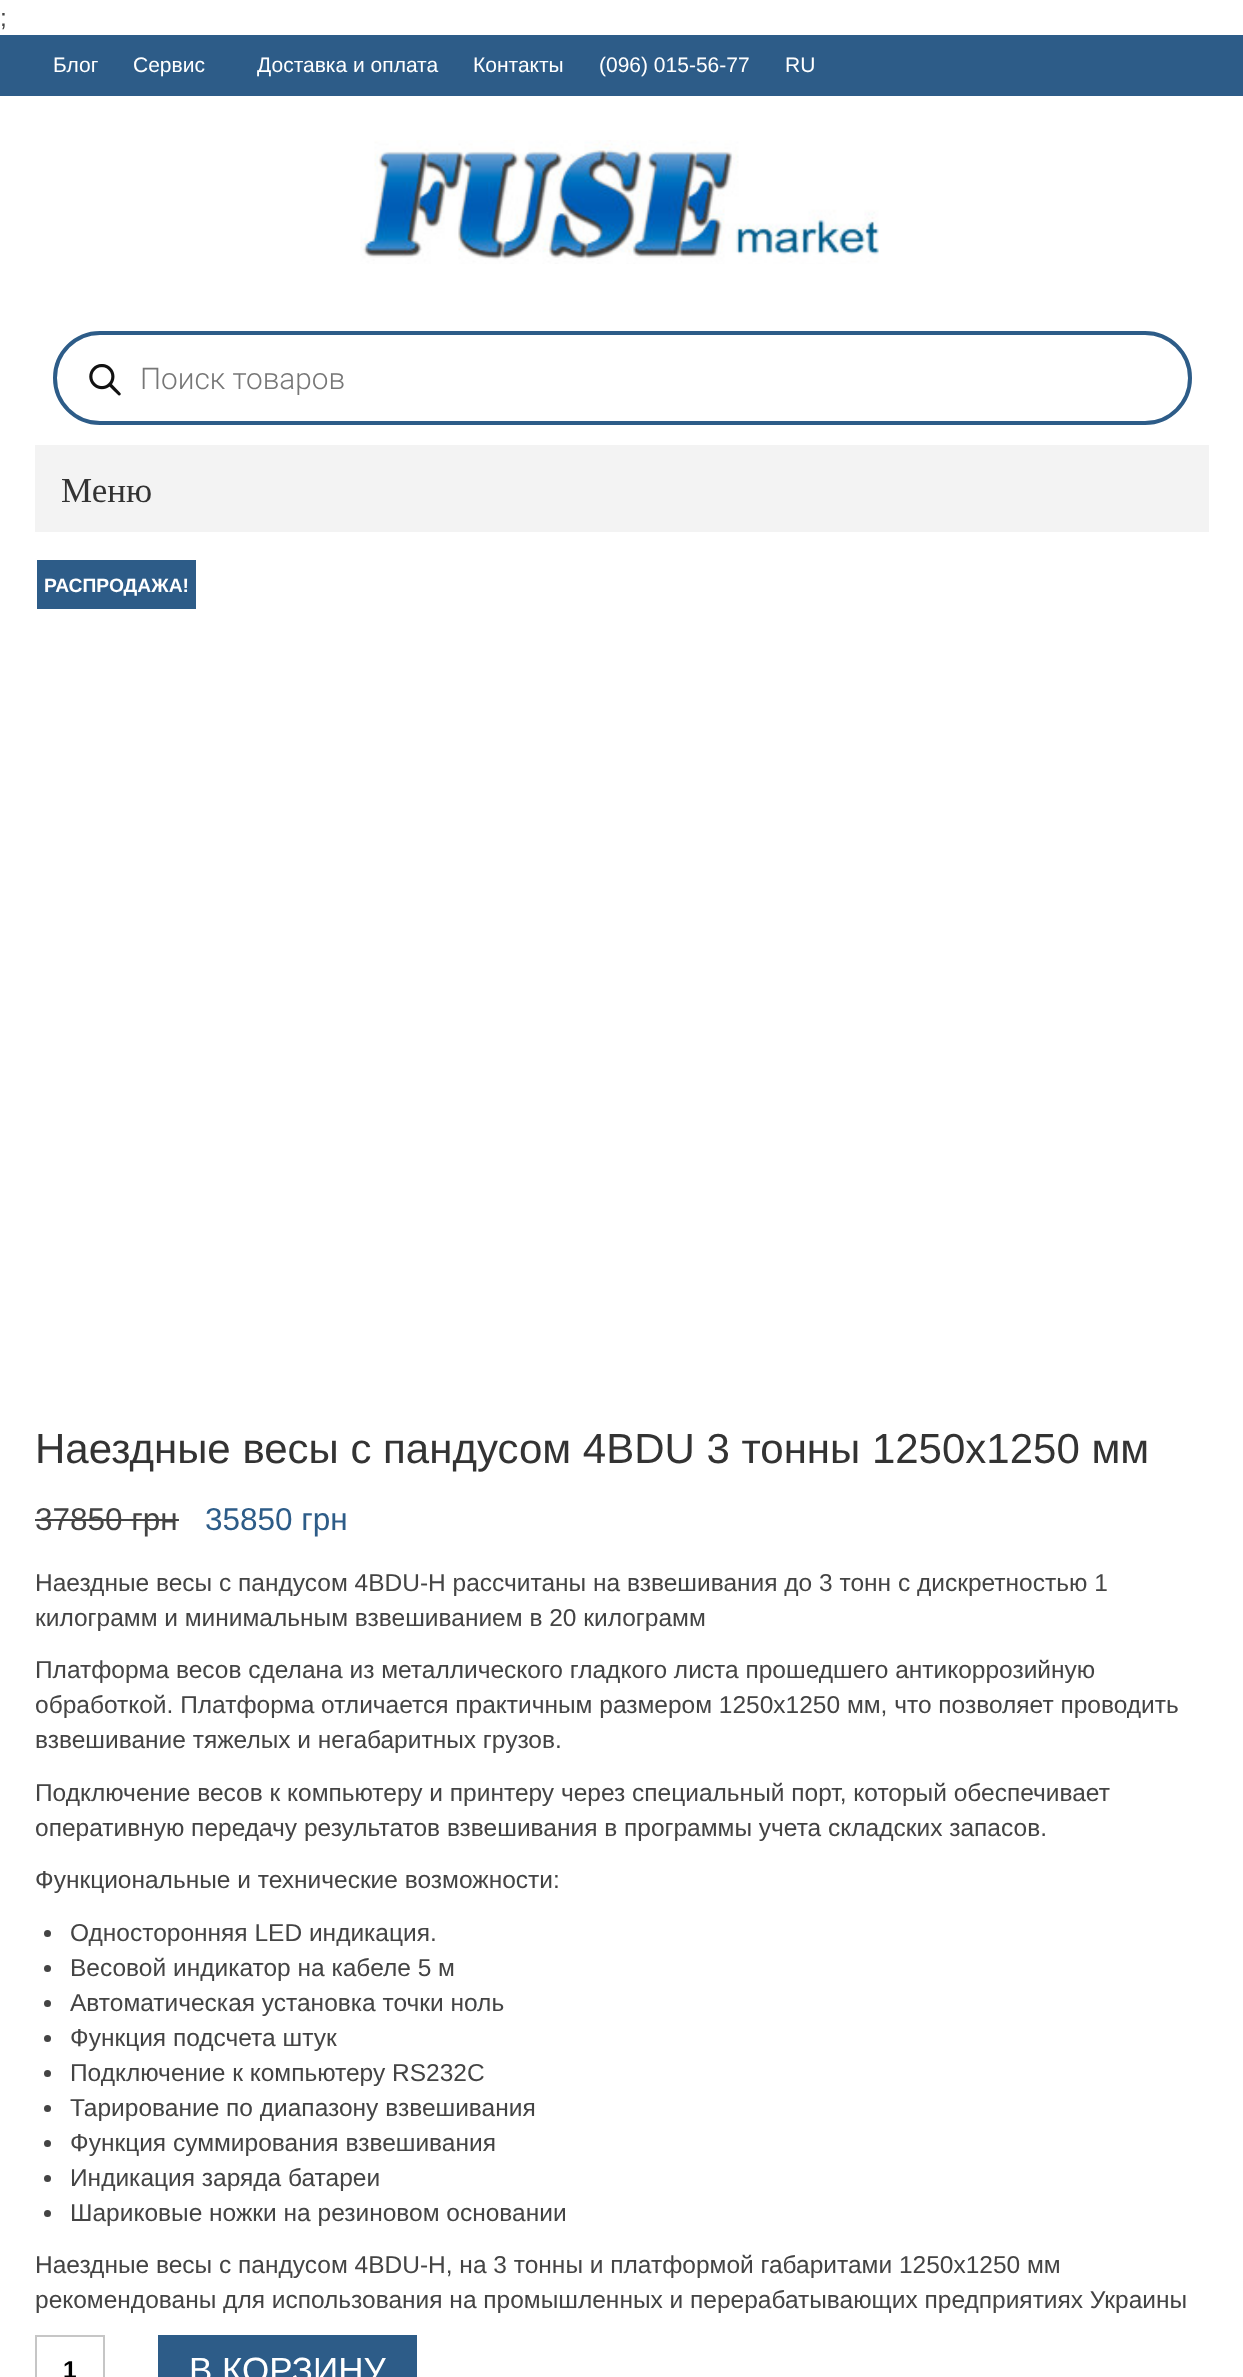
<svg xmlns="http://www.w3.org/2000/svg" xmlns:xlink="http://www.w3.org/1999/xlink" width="1243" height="2377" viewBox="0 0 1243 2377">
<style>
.cls-1{font:24.5px Liberation Sans;fill:#444444}
.cls-2{font:21px Liberation Sans;fill:#ffffff}
.cls-3{font:300 29.75px Roboto;fill:#777777}
.cls-4{font:35px Liberation Serif;fill:#333333}
.cls-5{font:bold 19.25px Liberation Sans;fill:#ffffff}
.cls-6{font:42px Liberation Sans;fill:#333333}
.cls-7{font:31.5px Liberation Sans;fill:#444444}
.cls-8{font:31.5px Liberation Sans;fill:#2d5c88}
.cls-9{font:bold 24.5px Liberation Sans;fill:#000000}
.cls-10{font:35px Liberation Sans;fill:#ffffff}
</style>
<rect width="100%" height="100%" fill="#ffffff"/>
<rect fill="#2d5c88" x="0" y="35" width="1243" height="61"/>
<image xlink:href="image0.png" x="360" y="140" width="519" height="124"/>
<rect fill="none" stroke="#2d5c88" stroke-width="4" x="55" y="333" width="1135" height="90" rx="45"/>
<image xlink:href="image1.png" x="89" y="364" width="32" height="32"/>
<rect fill="#f3f3f3" x="35" y="445" width="1174" height="87"/>
<rect fill="#2d5c88" x="37" y="560" width="159" height="49"/>
<rect fill="#444444" x="35" y="1519" width="144" height="2"/>
<circle fill="#444444" cx="47.5" cy="1933.5" r="3.5"/>
<circle fill="#444444" cx="47.5" cy="1968.5" r="3.5"/>
<circle fill="#444444" cx="47.5" cy="2003.5" r="3.5"/>
<circle fill="#444444" cx="47.5" cy="2038.5" r="3.5"/>
<circle fill="#444444" cx="47.5" cy="2073.5" r="3.5"/>
<circle fill="#444444" cx="47.5" cy="2108.5" r="3.5"/>
<circle fill="#444444" cx="47.5" cy="2143.5" r="3.5"/>
<circle fill="#444444" cx="47.5" cy="2178.5" r="3.5"/>
<circle fill="#444444" cx="47.5" cy="2213.5" r="3.5"/>
<rect fill="none" stroke="#c6c6c6" stroke-width="2" x="36" y="2336" width="68" height="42"/>
<rect fill="#2d5c88" x="158" y="2335" width="259" height="42"/>
<text class="cls-1" x="0" y="26">;</text>
<text class="cls-2" x="53" y="72">Блог</text>
<text class="cls-2" x="133" y="72">Сервис</text>
<text class="cls-2" x="257" y="72">Доставка и оплата</text>
<text class="cls-2" x="473" y="72">Контакты</text>
<text class="cls-2" x="599" y="72">(096) 015-56-77</text>
<text class="cls-2" x="785" y="72">RU</text>
<text class="cls-3" x="140" y="389">Поиск товаров</text>
<text class="cls-4" x="61" y="502">Меню</text>
<text class="cls-5" x="44" y="592">РАСПРОДАЖА!</text>
<text class="cls-6" x="35" y="1463">Наездные весы с пандусом 4BDU 3 тонны 1250х1250 мм</text>
<text class="cls-7" x="35" y="1530">37850 грн</text>
<text class="cls-8" x="205" y="1530">35850 грн</text>
<text class="cls-1"><tspan x="35" y="1591">Наездные весы с пандусом 4BDU-Н рассчитаны на взвешивания до 3 тонн с дискретностью 1</tspan><tspan x="35" y="1626">килограмм и минимальным взвешиванием в 20 килограмм</tspan></text>
<text class="cls-1"><tspan x="35" y="1678">Платформа весов сделана из металлического гладкого листа прошедшего антикоррозийную</tspan><tspan x="35" y="1713">обработкой. Платформа отличается практичным размером 1250х1250 мм, что позволяет проводить</tspan><tspan x="35" y="1748">взвешивание тяжелых и негабаритных грузов.</tspan></text>
<text class="cls-1"><tspan x="35" y="1801">Подключение весов к компьютеру и принтеру через специальный порт, который обеспечивает</tspan><tspan x="35" y="1836">оперативную передачу результатов взвешивания в программы учета складских запасов.</tspan></text>
<text class="cls-1" x="35" y="1888">Функциональные и технические возможности:</text>
<text class="cls-1"><tspan x="70" y="1941">Односторонняя LED индикация.</tspan><tspan x="70" y="1976">Весовой индикатор на кабеле 5 м</tspan><tspan x="70" y="2011">Автоматическая установка точки ноль</tspan><tspan x="70" y="2046">Функция подсчета штук</tspan><tspan x="70" y="2081">Подключение к компьютеру RS232C</tspan><tspan x="70" y="2116">Тарирование по диапазону взвешивания</tspan><tspan x="70" y="2151">Функция суммирования взвешивания</tspan><tspan x="70" y="2186">Индикация заряда батареи</tspan><tspan x="70" y="2221">Шариковые ножки на резиновом основании</tspan></text>
<text class="cls-1"><tspan x="35" y="2273">Наездные весы с пандусом 4BDU-Н, на 3 тонны и платформой габаритами 1250х1250 мм</tspan><tspan x="35" y="2308">рекомендованы для использования на промышленных и перерабатывающих предприятиях Украины</tspan></text>
<text class="cls-9" x="63" y="2378">1</text>
<text class="cls-10" x="189" y="2382">В КОРЗИНУ</text>
</svg>
